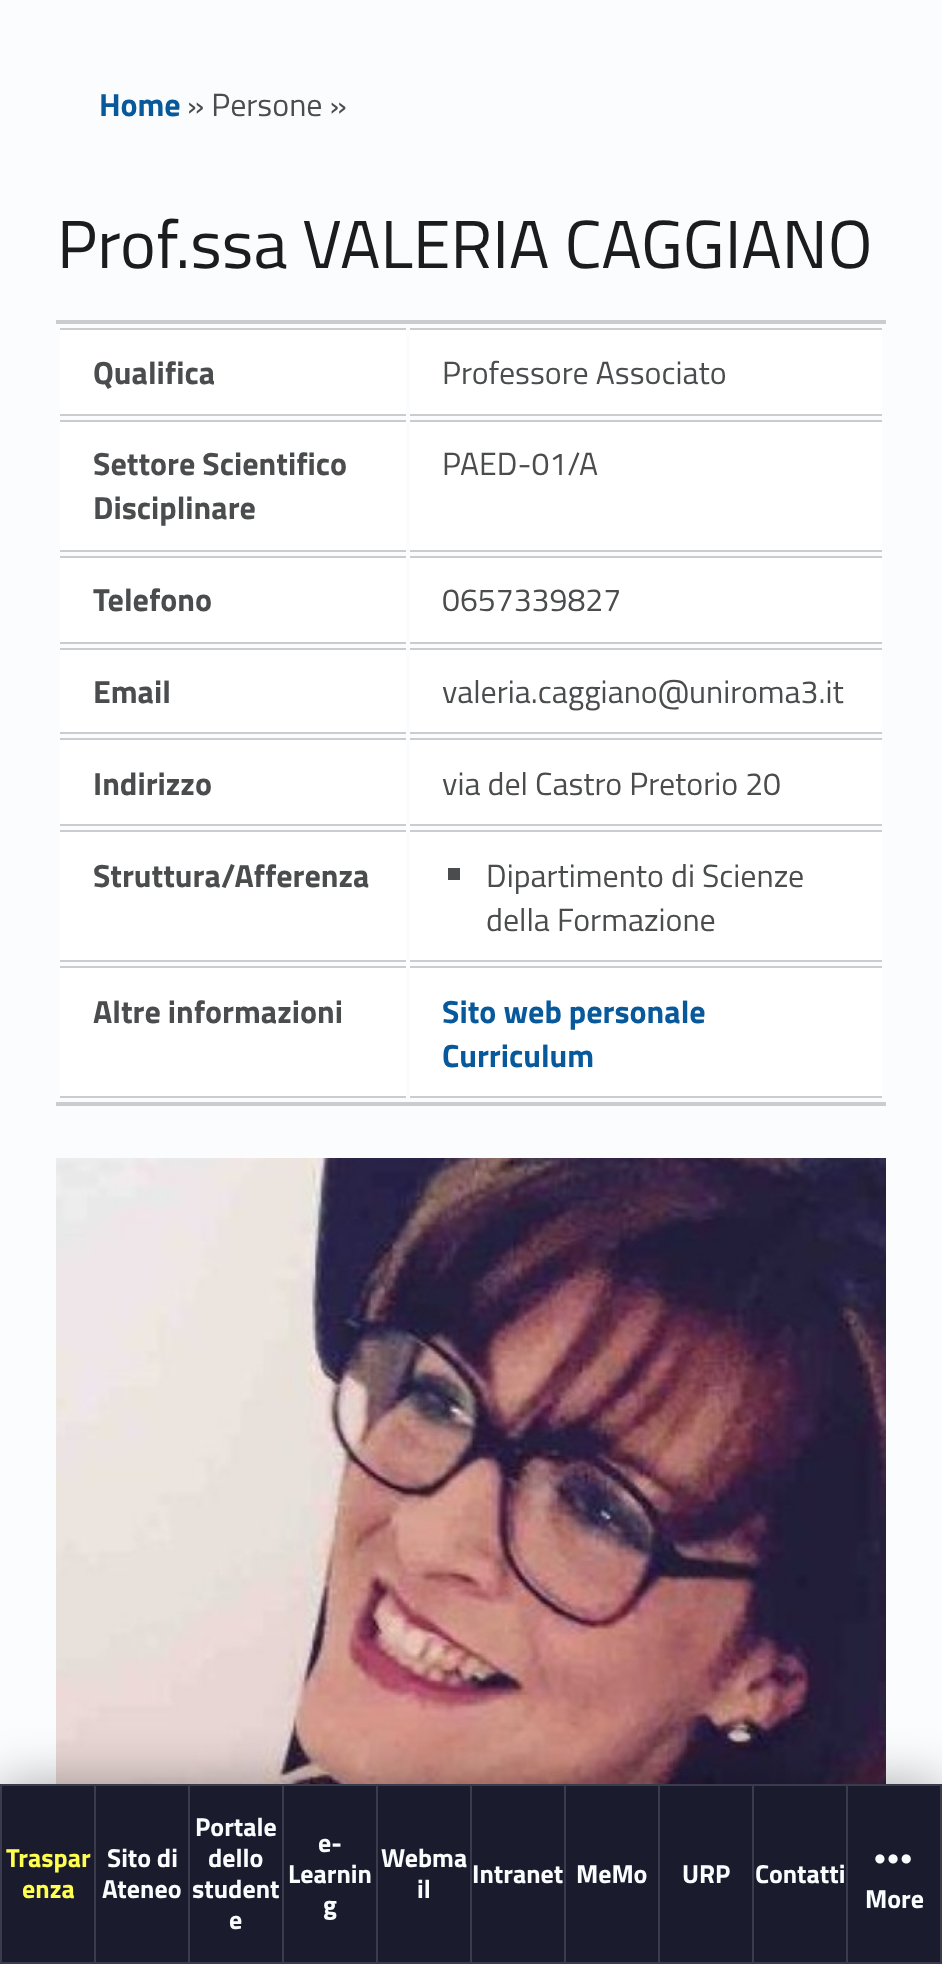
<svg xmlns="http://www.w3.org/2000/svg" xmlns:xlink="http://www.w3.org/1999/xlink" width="942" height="1964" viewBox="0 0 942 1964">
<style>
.cls-1{font:bold 32px Titillium Web;fill:#07599b}
.cls-2{font:32px Titillium Web;fill:#4a4c4d}
.cls-3{font:67.9px Titillium Web;fill:#1a1c1e}
.cls-4{font:bold 32px Titillium Web;fill:#4a4c4d}
.cls-5{font:bold 26px Titillium Web;fill:#ffff4f}
.cls-6{font:bold 26px Titillium Web;fill:#fafcfe}
</style>
<rect width="100%" height="100%" fill="#fafcfe"/>
<rect fill="#caccce" x="56" y="320" width="830" height="4"/>
<rect fill="#caccce" x="56" y="1102" width="830" height="4"/>
<rect fill="#ffffff" x="60" y="330" width="346" height="84"/>
<rect fill="#caccce" x="60" y="328" width="346" height="2"/>
<rect fill="#caccce" x="60" y="414" width="346" height="2"/>
<rect fill="#ffffff" x="410" y="330" width="472" height="84"/>
<rect fill="#caccce" x="410" y="328" width="472" height="2"/>
<rect fill="#caccce" x="410" y="414" width="472" height="2"/>
<rect fill="#ffffff" x="60" y="422" width="346" height="128"/>
<rect fill="#caccce" x="60" y="420" width="346" height="2"/>
<rect fill="#caccce" x="60" y="550" width="346" height="2"/>
<rect fill="#ffffff" x="410" y="422" width="472" height="128"/>
<rect fill="#caccce" x="410" y="420" width="472" height="2"/>
<rect fill="#caccce" x="410" y="550" width="472" height="2"/>
<rect fill="#ffffff" x="60" y="558" width="346" height="84"/>
<rect fill="#caccce" x="60" y="556" width="346" height="2"/>
<rect fill="#caccce" x="60" y="642" width="346" height="2"/>
<rect fill="#ffffff" x="410" y="558" width="472" height="84"/>
<rect fill="#caccce" x="410" y="556" width="472" height="2"/>
<rect fill="#caccce" x="410" y="642" width="472" height="2"/>
<rect fill="#ffffff" x="60" y="650" width="346" height="82"/>
<rect fill="#caccce" x="60" y="648" width="346" height="2"/>
<rect fill="#caccce" x="60" y="732" width="346" height="2"/>
<rect fill="#ffffff" x="410" y="650" width="472" height="82"/>
<rect fill="#caccce" x="410" y="648" width="472" height="2"/>
<rect fill="#caccce" x="410" y="732" width="472" height="2"/>
<rect fill="#ffffff" x="60" y="740" width="346" height="84"/>
<rect fill="#caccce" x="60" y="738" width="346" height="2"/>
<rect fill="#caccce" x="60" y="824" width="346" height="2"/>
<rect fill="#ffffff" x="410" y="740" width="472" height="84"/>
<rect fill="#caccce" x="410" y="738" width="472" height="2"/>
<rect fill="#caccce" x="410" y="824" width="472" height="2"/>
<rect fill="#ffffff" x="60" y="832" width="346" height="128"/>
<rect fill="#caccce" x="60" y="830" width="346" height="2"/>
<rect fill="#caccce" x="60" y="960" width="346" height="2"/>
<rect fill="#ffffff" x="410" y="832" width="472" height="128"/>
<rect fill="#caccce" x="410" y="830" width="472" height="2"/>
<rect fill="#caccce" x="410" y="960" width="472" height="2"/>
<rect fill="#4a4c4d" x="448" y="868" width="12" height="12"/>
<rect fill="#ffffff" x="60" y="968" width="346" height="128"/>
<rect fill="#caccce" x="60" y="966" width="346" height="2"/>
<rect fill="#caccce" x="60" y="1096" width="346" height="2"/>
<rect fill="#ffffff" x="410" y="968" width="472" height="128"/>
<rect fill="#caccce" x="410" y="966" width="472" height="2"/>
<rect fill="#caccce" x="410" y="1096" width="472" height="2"/>
<image xlink:href="image0.png" x="56" y="1158" width="830" height="626"/>
<rect fill="#000000" fill-opacity="0.33" filter="blur(26px)" x="0" y="1784" width="942" height="180"/>
<rect fill="#1a1c2e" x="2" y="1786" width="938" height="176"/>
<rect fill="#3a3c4e" x="846" y="1784" width="96" height="2"/>
<rect fill="#3a3c4e" x="940" y="1784" width="2" height="180"/>
<rect fill="#3a3c4e" x="846" y="1962" width="96" height="2"/>
<rect fill="#3a3c4e" x="846" y="1784" width="2" height="180"/>
<rect fill="#3a3c4e" x="752" y="1784" width="96" height="2"/>
<rect fill="#3a3c4e" x="752" y="1962" width="96" height="2"/>
<rect fill="#3a3c4e" x="752" y="1784" width="2" height="180"/>
<rect fill="#3a3c4e" x="658" y="1784" width="96" height="2"/>
<rect fill="#3a3c4e" x="658" y="1962" width="96" height="2"/>
<rect fill="#3a3c4e" x="658" y="1784" width="2" height="180"/>
<rect fill="#3a3c4e" x="564" y="1784" width="96" height="2"/>
<rect fill="#3a3c4e" x="564" y="1962" width="96" height="2"/>
<rect fill="#3a3c4e" x="564" y="1784" width="2" height="180"/>
<rect fill="#3a3c4e" x="470" y="1784" width="96" height="2"/>
<rect fill="#3a3c4e" x="470" y="1962" width="96" height="2"/>
<rect fill="#3a3c4e" x="470" y="1784" width="2" height="180"/>
<rect fill="#3a3c4e" x="376" y="1784" width="96" height="2"/>
<rect fill="#3a3c4e" x="376" y="1962" width="96" height="2"/>
<rect fill="#3a3c4e" x="376" y="1784" width="2" height="180"/>
<rect fill="#3a3c4e" x="282" y="1784" width="96" height="2"/>
<rect fill="#3a3c4e" x="282" y="1962" width="96" height="2"/>
<rect fill="#3a3c4e" x="282" y="1784" width="2" height="180"/>
<rect fill="#3a3c4e" x="188" y="1784" width="96" height="2"/>
<rect fill="#3a3c4e" x="188" y="1962" width="96" height="2"/>
<rect fill="#3a3c4e" x="188" y="1784" width="2" height="180"/>
<rect fill="#3a3c4e" x="94" y="1784" width="96" height="2"/>
<rect fill="#3a3c4e" x="94" y="1962" width="96" height="2"/>
<rect fill="#3a3c4e" x="94" y="1784" width="2" height="180"/>
<rect fill="#3a3c4e" x="0" y="1784" width="96" height="2"/>
<rect fill="#3a3c4e" x="0" y="1962" width="96" height="2"/>
<rect fill="#3a3c4e" x="0" y="1784" width="2" height="180"/>
<image xlink:href="image1.png" x="875" y="1854" width="36" height="10"/>
<text class="cls-1" x="99" y="116">Home</text>
<text class="cls-2" x="187" y="116">» Persone »</text>
<text class="cls-3" x="57" y="268">Prof.ssa VALERIA CAGGIANO</text>
<text class="cls-4" x="93" y="384">Qualifica</text>
<text class="cls-2" x="442" y="384">Professore Associato</text>
<text class="cls-4"><tspan x="93" y="475">Settore Scientifico</tspan><tspan x="93" y="519">Disciplinare</tspan></text>
<text class="cls-2" x="442" y="475">PAED-01/A</text>
<text class="cls-4" x="93" y="611">Telefono</text>
<text class="cls-2" x="442" y="611">0657339827</text>
<text class="cls-4" x="93" y="703">Email</text>
<text class="cls-2" x="442" y="703">valeria.caggiano@uniroma3.it</text>
<text class="cls-4" x="93" y="795">Indirizzo</text>
<text class="cls-2" x="442" y="795">via del Castro Pretorio 20</text>
<text class="cls-4" x="93" y="887">Struttura/Afferenza</text>
<text class="cls-2"><tspan x="486" y="887">Dipartimento di Scienze</tspan><tspan x="486" y="931">della Formazione</tspan></text>
<text class="cls-4" x="93" y="1023">Altre informazioni</text>
<text class="cls-1"><tspan x="442" y="1023">Sito web personale</tspan><tspan x="442" y="1067">Curriculum</tspan></text>
<text class="cls-5" x="6" y="1867">Traspar</text>
<text class="cls-5" x="22" y="1898">enza</text>
<text class="cls-6" x="107" y="1867">Sito di</text>
<text class="cls-6" x="102" y="1898">Ateneo</text>
<text class="cls-6" x="195" y="1836">Portale</text>
<text class="cls-6" x="208" y="1867">dello</text>
<text class="cls-6" x="192" y="1898">student</text>
<text class="cls-6" x="229" y="1929">e</text>
<text class="cls-6" x="318" y="1852">e-</text>
<text class="cls-6" x="288" y="1883">Learnin</text>
<text class="cls-6" x="323" y="1914">g</text>
<text class="cls-6" x="381" y="1867">Webma</text>
<text class="cls-6" x="417" y="1898">il</text>
<text class="cls-6" x="472" y="1883">Intranet</text>
<text class="cls-6" x="576" y="1883">MeMo</text>
<text class="cls-6" x="682" y="1883">URP</text>
<text class="cls-6" x="755" y="1883">Contatti</text>
<text class="cls-6" x="865" y="1908">More</text>
</svg>
